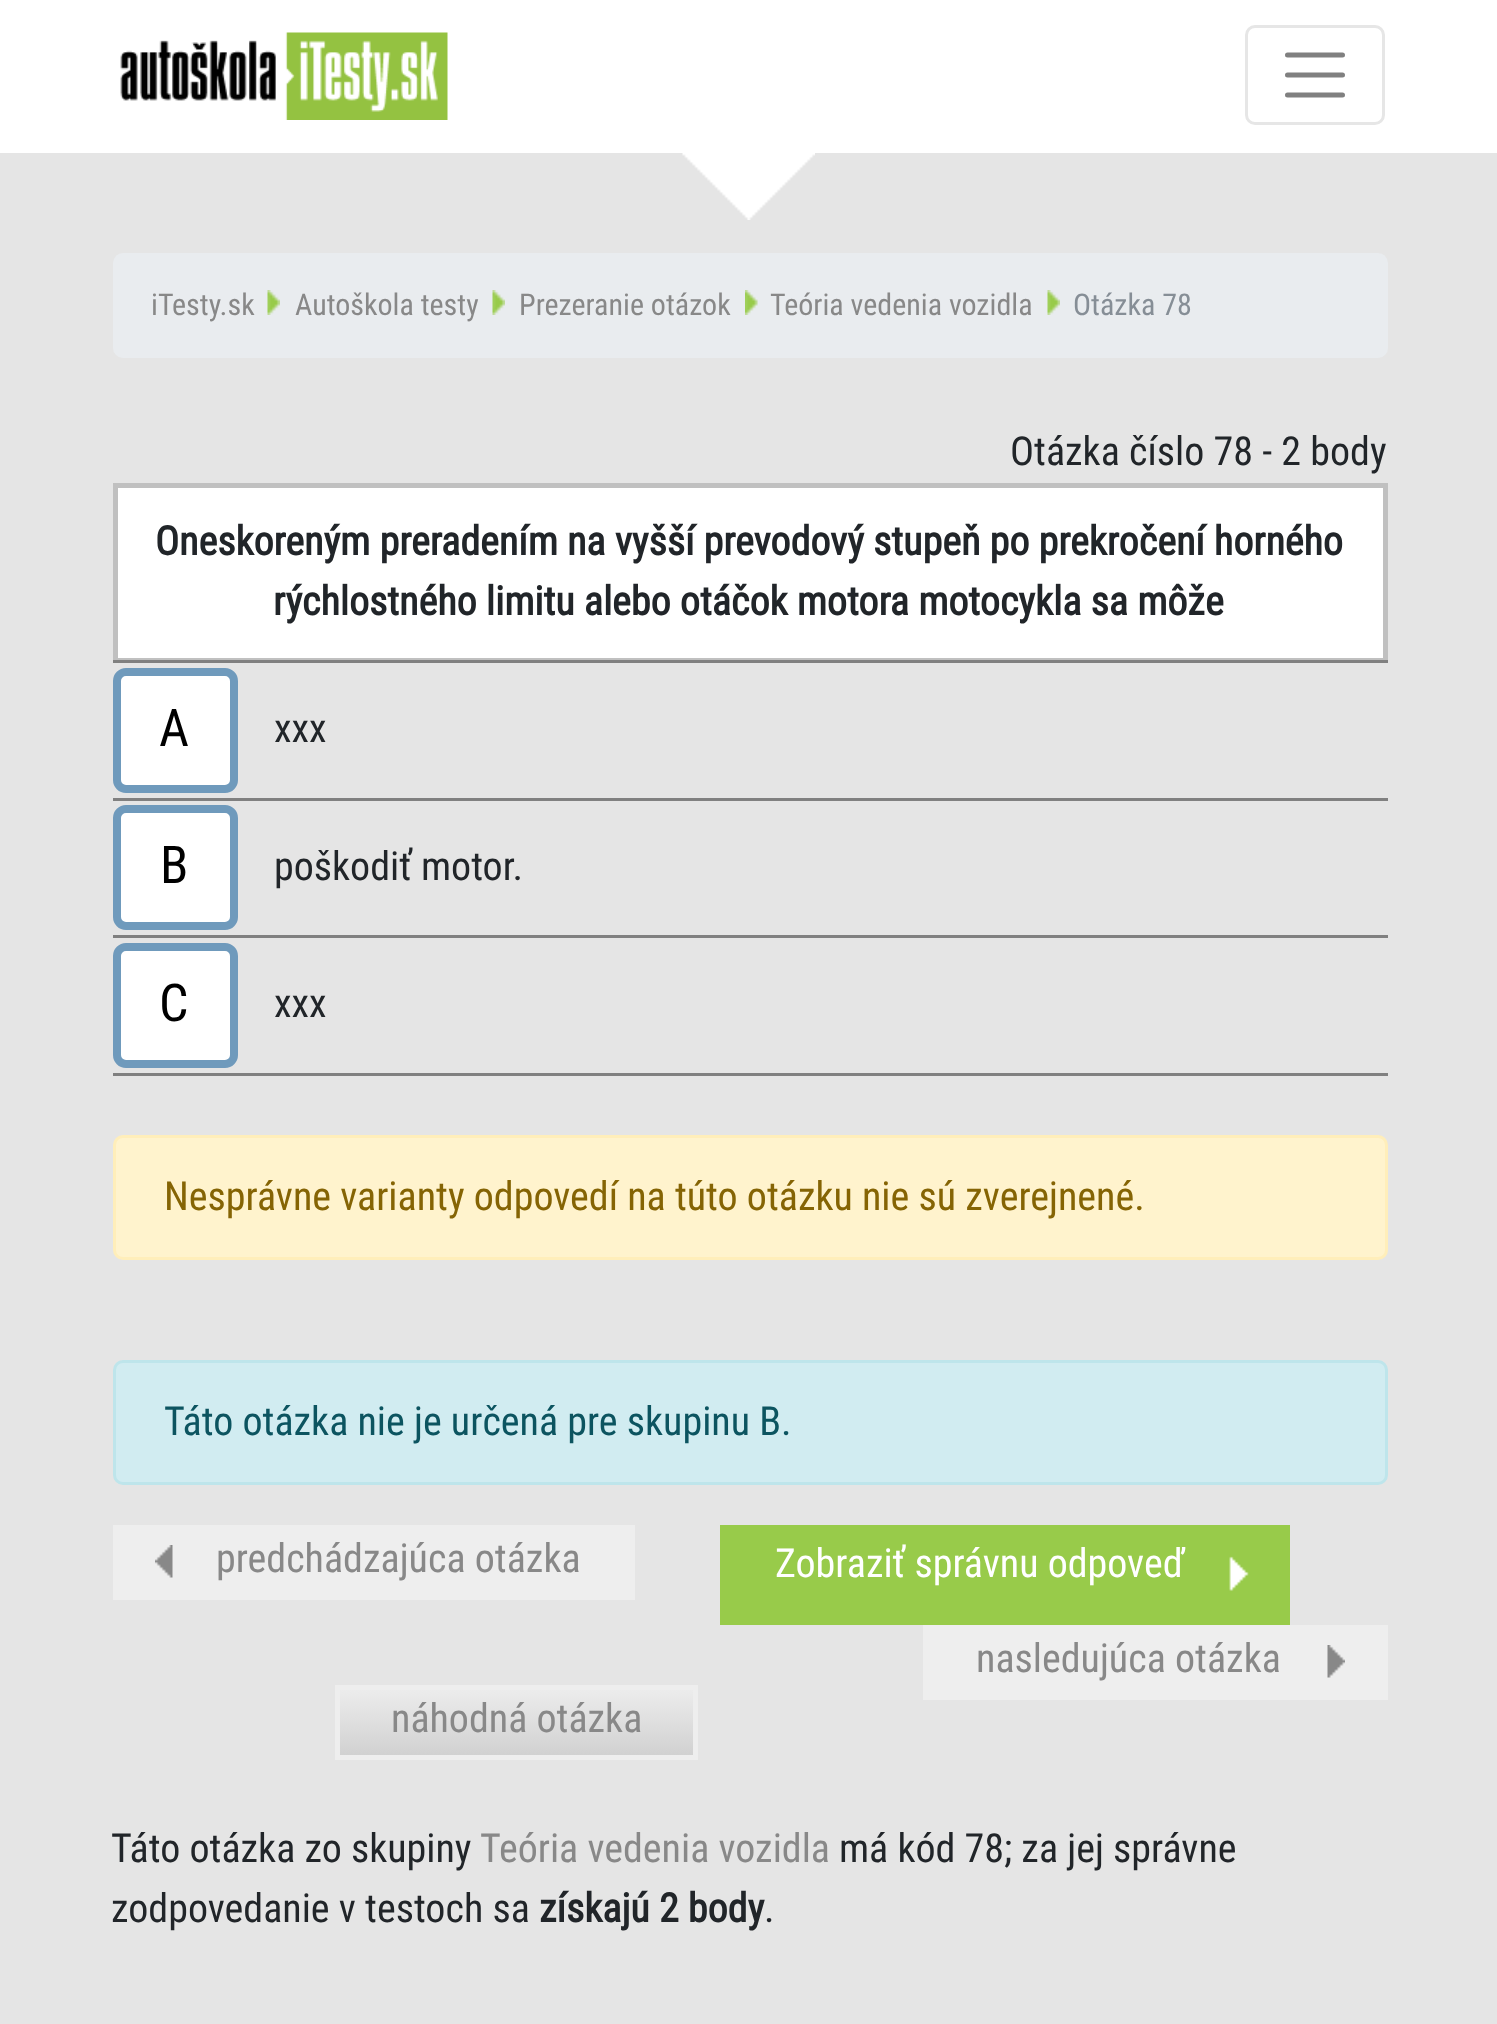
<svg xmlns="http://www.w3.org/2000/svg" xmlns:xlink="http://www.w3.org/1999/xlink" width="1497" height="2024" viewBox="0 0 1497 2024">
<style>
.cls-1{font:30px Roboto Condensed;fill:#888888}
.cls-2{font:30px Roboto Condensed;fill:#868e96}
.cls-3{font:40px Roboto Condensed;fill:#212529}
.cls-4{font:bold 40px Roboto Condensed;fill:#212529}
.cls-5{font:52px Roboto Condensed;fill:#000000}
.cls-6{font:40px Roboto Condensed;fill:#856404}
.cls-7{font:40px Roboto Condensed;fill:#0c5460}
.cls-8{font:40px Roboto Condensed;fill:#888888}
.cls-9{font:40px Roboto Condensed;fill:#ffffff}
</style>
<defs>
<linearGradient id="g1" gradientUnits="userSpaceOnUse" x1="516" y1="1690" x2="516" y2="1755"><stop offset="0" stop-color="#ececec"/><stop offset="1" stop-color="#d1d1d1"/></linearGradient>
</defs>
<rect width="100%" height="100%" fill="#e5e5e5"/>
<rect fill="#ffffff" x="0" y="0" width="1497" height="153"/>
<image xlink:href="image0.png" x="120" y="32" width="328" height="88"/>
<rect fill="none" stroke="#e6e6e6" stroke-width="3" x="1246.5" y="26.5" width="137" height="97" rx="8.5"/>
<path fill="none" stroke="#808080" stroke-width="5" stroke-linecap="round" d="M1287.5 55H1342.5M1287.5 75H1342.5M1287.5 95H1342.5"/>
<image xlink:href="image1.png" x="682" y="153" width="133" height="67"/>
<rect fill="#e9ecef" x="113" y="253" width="1275" height="105" rx="10"/>
<image xlink:href="image2.png" x="267" y="290" width="13" height="25"/>
<image xlink:href="image2.png" x="492" y="290" width="13" height="25"/>
<image xlink:href="image3.png" x="745" y="290" width="13" height="25"/>
<image xlink:href="image4.png" x="1047" y="290" width="13" height="25"/>
<rect fill="#ffffff" stroke="#c0c0c0" stroke-width="5" x="115.5" y="485.5" width="1270" height="175"/>
<rect fill="#808080" x="113" y="660" width="1275" height="3"/>
<rect fill="#808080" x="113" y="798" width="1275" height="3"/>
<rect fill="#ffffff" stroke="#6f9abc" stroke-width="8" x="117" y="672" width="117" height="117" rx="9"/>
<rect fill="#808080" x="113" y="935" width="1275" height="3"/>
<rect fill="#ffffff" stroke="#6f9abc" stroke-width="8" x="117" y="809" width="117" height="117" rx="9"/>
<rect fill="#808080" x="113" y="1073" width="1275" height="3"/>
<rect fill="#ffffff" stroke="#6f9abc" stroke-width="8" x="117" y="947" width="117" height="117" rx="9"/>
<rect fill="#fff3cd" stroke="#ffeeba" stroke-width="3" x="114.5" y="1136.5" width="1272" height="122" rx="8.5"/>
<rect fill="#d1ecf1" stroke="#bee5eb" stroke-width="3" x="114.5" y="1361.5" width="1272" height="122" rx="8.5"/>
<rect fill="#eeeeee" x="113" y="1525" width="522" height="75"/>
<image xlink:href="image5.png" x="155" y="1545" width="18" height="33"/>
<rect fill="#98cb4a" x="720" y="1525" width="570" height="100"/>
<image xlink:href="image6.png" x="1229" y="1556" width="20" height="35"/>
<rect fill="#eeeeee" x="923" y="1625" width="465" height="75"/>
<image xlink:href="image7.png" x="1327" y="1645" width="18" height="33"/>
<rect fill="url(#g1)" x="340" y="1690" width="353" height="65"/>
<rect fill="none" stroke="#eeeeee" stroke-width="5" x="337.5" y="1687.5" width="358" height="70"/>
<text class="cls-1" x="151" y="315">iTesty.sk</text>
<text class="cls-1" x="295" y="315">Autoškola testy</text>
<text class="cls-1" x="519" y="315">Prezeranie otázok</text>
<text class="cls-1" x="770" y="315">Teória vedenia vozidla</text>
<text class="cls-2" x="1073" y="315">Otázka 78</text>
<text class="cls-3" x="1010" y="465">Otázka číslo 78 - 2 body</text>
<text class="cls-4" x="155" y="555">Oneskoreným preradením na vyšší prevodový stupeň po prekročení horného</text>
<text class="cls-4" x="273" y="615">rýchlostného limitu alebo otáčok motora motocykla sa môže</text>
<text class="cls-5" x="159" y="746">A</text>
<text class="cls-3" x="274" y="742">xxx</text>
<text class="cls-5" x="160" y="883">B</text>
<text class="cls-3" x="274" y="880">poškodiť motor.</text>
<text class="cls-5" x="159" y="1021">C</text>
<text class="cls-3" x="274" y="1017">xxx</text>
<text class="cls-6" x="164" y="1210">Nesprávne varianty odpovedí na túto otázku nie sú zverejnené.</text>
<text class="cls-7" x="164" y="1435">Táto otázka nie je určená pre skupinu B.</text>
<text class="cls-8" x="216" y="1572">predchádzajúca otázka</text>
<text class="cls-9" x="775" y="1577">Zobraziť správnu odpoveď</text>
<text class="cls-8" x="976" y="1672">nasledujúca otázka</text>
<text class="cls-8" x="391" y="1732">náhodná otázka</text>
<text class="cls-3" x="111" y="1862">Táto otázka zo skupiny</text>
<text class="cls-8" x="480" y="1862">Teória vedenia vozidla</text>
<text class="cls-3" x="839" y="1862">má kód 78; za jej správne</text>
<text class="cls-3" x="111" y="1922">zodpovedanie v testoch sa</text>
<text class="cls-4" x="539" y="1922">získajú 2 body</text>
<text class="cls-3" x="764" y="1922">.</text>
</svg>
